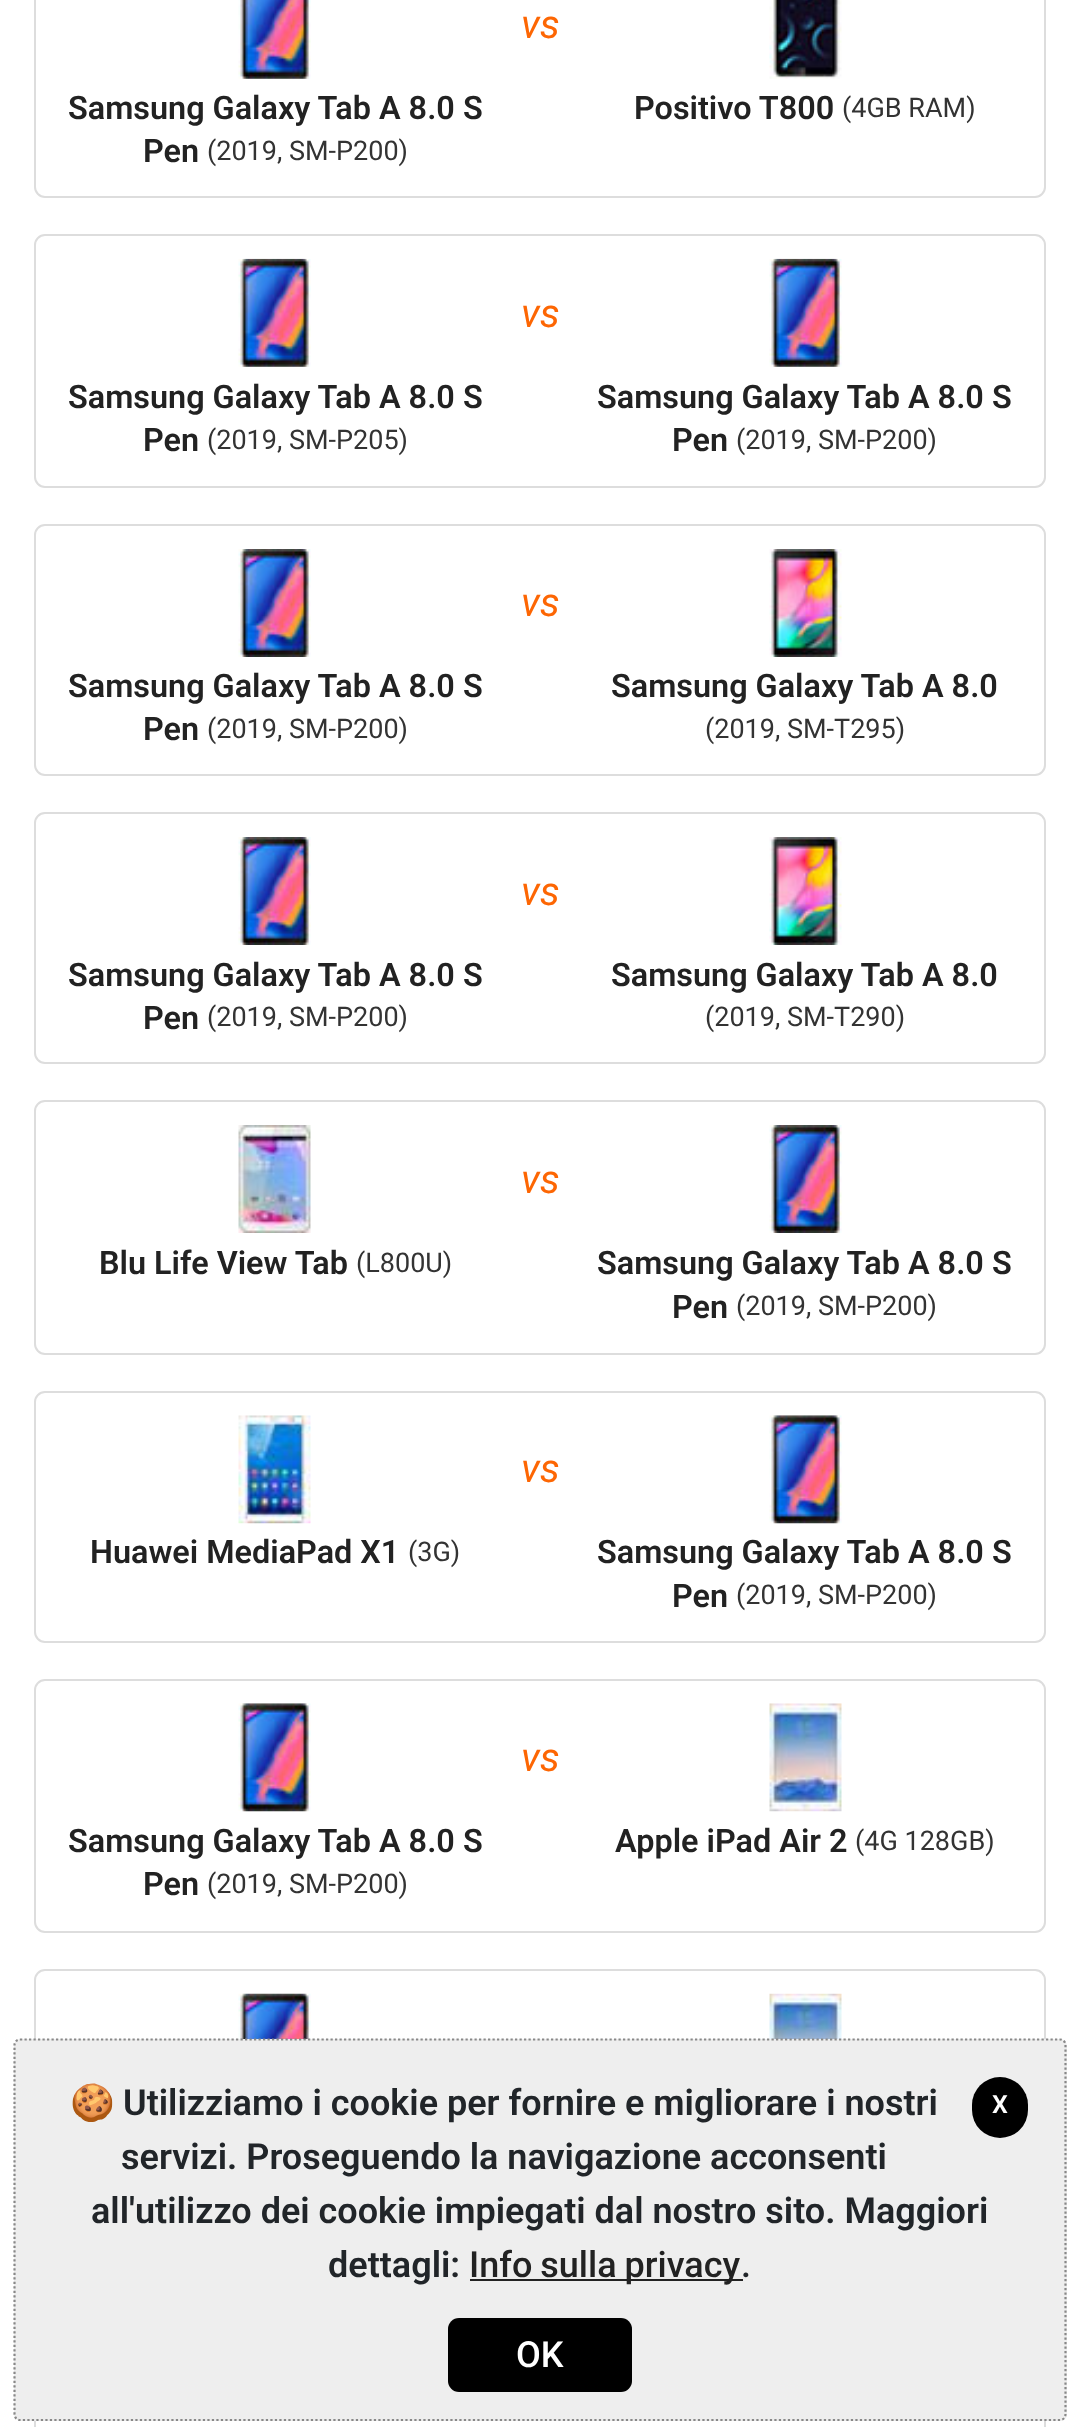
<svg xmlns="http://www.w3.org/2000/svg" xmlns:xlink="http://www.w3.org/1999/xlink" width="1080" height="2427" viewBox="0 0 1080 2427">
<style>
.cls-1{font:italic 40px Roboto;fill:#fd6603}
.cls-2{font:600 32.4px Roboto;fill:#222222}
.cls-3{font:27px Roboto;fill:#333333}
.cls-4{font:36px Noto Color Emoji;fill:#212529}
.cls-5{font:600 36px Roboto;fill:#212529}
.cls-6{font:500 36px Roboto;fill:#222222}
.cls-7{font:500 36px Roboto;fill:#212529}
.cls-8{font:600 25px Roboto;fill:#ffffff}
.cls-9{font:500 36px Roboto;fill:#ffffff}
</style>
<rect width="100%" height="100%" fill="#ffffff"/>
<rect fill="none" stroke="#dddddd" stroke-width="2" x="35" y="-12" width="1010" height="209" rx="10"/>
<image xlink:href="image0.png" x="238" y="0" width="73" height="79"/>
<image xlink:href="image1.png" x="769" y="0" width="73" height="79"/>
<rect fill="none" stroke="#dddddd" stroke-width="2" x="35" y="235" width="1010" height="252" rx="10"/>
<image xlink:href="image2.png" x="238" y="258" width="73" height="109"/>
<image xlink:href="image3.png" x="769" y="258" width="73" height="109"/>
<rect fill="none" stroke="#dddddd" stroke-width="2" x="35" y="525" width="1010" height="250" rx="10"/>
<image xlink:href="image4.png" x="238" y="549" width="73" height="108"/>
<image xlink:href="image5.png" x="769" y="549" width="73" height="108"/>
<rect fill="none" stroke="#dddddd" stroke-width="2" x="35" y="813" width="1010" height="250" rx="10"/>
<image xlink:href="image4.png" x="238" y="837" width="73" height="108"/>
<image xlink:href="image5.png" x="769" y="837" width="73" height="108"/>
<rect fill="none" stroke="#dddddd" stroke-width="2" x="35" y="1101" width="1010" height="253" rx="10"/>
<image xlink:href="image6.png" x="238" y="1125" width="73" height="108"/>
<image xlink:href="image7.png" x="769" y="1125" width="73" height="108"/>
<rect fill="none" stroke="#dddddd" stroke-width="2" x="35" y="1392" width="1010" height="250" rx="10"/>
<image xlink:href="image8.png" x="238" y="1415" width="73" height="109"/>
<image xlink:href="image9.png" x="769" y="1415" width="73" height="109"/>
<rect fill="none" stroke="#dddddd" stroke-width="2" x="35" y="1680" width="1010" height="252" rx="10"/>
<image xlink:href="image10.png" x="238" y="1703" width="73" height="109"/>
<image xlink:href="image11.png" x="769" y="1703" width="73" height="109"/>
<rect fill="none" stroke="#dddddd" stroke-width="2" x="35" y="1970" width="1010" height="250" rx="10"/>
<image xlink:href="image12.png" x="238" y="1993" width="73" height="46"/>
<image xlink:href="image13.png" x="769" y="1993" width="73" height="46"/>
<rect fill="none" stroke="#dddddd" stroke-width="2" x="35" y="2258" width="1010" height="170"/>
<rect fill="#eeeeee" x="14" y="2039" width="1053" height="382" rx="7"/>
<path fill="none" stroke="#888888" stroke-width="2.2" stroke-dasharray="2.25 2.25" d="M20 2039.5H1060C1063 2039.5 1065.5 2042 1065.5 2045V2414C1065.5 2417.5 1063 2420 1060 2420H20C17 2420 14.5 2417.5 14.5 2414V2045C14.5 2042 17 2039.5 20 2039.5Z"/>
<rect fill="#222222" x="470" y="2279" width="273" height="2"/>
<rect fill="#000000" x="972" y="2077" width="56" height="61" rx="28"/>
<rect fill="#000000" x="448" y="2318" width="184" height="74" rx="11"/>
<text class="cls-1" x="521" y="38">vs</text>
<text class="cls-2" x="68" y="119">Samsung Galaxy Tab A 8.0 S</text>
<text class="cls-2" x="143" y="162">Pen</text>
<text class="cls-3" x="207" y="160">(2019, SM-P200)</text>
<text class="cls-2" x="634" y="119">Positivo T800</text>
<text class="cls-3" x="842" y="117">(4GB RAM)</text>
<text class="cls-1" x="521" y="327">vs</text>
<text class="cls-2" x="68" y="408">Samsung Galaxy Tab A 8.0 S</text>
<text class="cls-2" x="143" y="451">Pen</text>
<text class="cls-3" x="207" y="449">(2019, SM-P205)</text>
<text class="cls-2" x="597" y="408">Samsung Galaxy Tab A 8.0 S</text>
<text class="cls-2" x="672" y="451">Pen</text>
<text class="cls-3" x="736" y="449">(2019, SM-P200)</text>
<text class="cls-1" x="521" y="616">vs</text>
<text class="cls-2" x="68" y="697">Samsung Galaxy Tab A 8.0 S</text>
<text class="cls-2" x="143" y="740">Pen</text>
<text class="cls-3" x="207" y="738">(2019, SM-P200)</text>
<text class="cls-2" x="611" y="697">Samsung Galaxy Tab A 8.0</text>
<text class="cls-3" x="705" y="738">(2019, SM-T295)</text>
<text class="cls-1" x="521" y="905">vs</text>
<text class="cls-2" x="68" y="986">Samsung Galaxy Tab A 8.0 S</text>
<text class="cls-2" x="143" y="1029">Pen</text>
<text class="cls-3" x="207" y="1026">(2019, SM-P200)</text>
<text class="cls-2" x="611" y="986">Samsung Galaxy Tab A 8.0</text>
<text class="cls-3" x="705" y="1026">(2019, SM-T290)</text>
<text class="cls-1" x="521" y="1193">vs</text>
<text class="cls-2" x="99" y="1274">Blu Life View Tab</text>
<text class="cls-3" x="356" y="1272">(L800U)</text>
<text class="cls-2" x="597" y="1274">Samsung Galaxy Tab A 8.0 S</text>
<text class="cls-2" x="672" y="1318">Pen</text>
<text class="cls-3" x="736" y="1315">(2019, SM-P200)</text>
<text class="cls-1" x="521" y="1482">vs</text>
<text class="cls-2" x="90" y="1563">Huawei MediaPad X1</text>
<text class="cls-3" x="408" y="1561">(3G)</text>
<text class="cls-2" x="597" y="1563">Samsung Galaxy Tab A 8.0 S</text>
<text class="cls-2" x="672" y="1607">Pen</text>
<text class="cls-3" x="736" y="1604">(2019, SM-P200)</text>
<text class="cls-1" x="521" y="1771">vs</text>
<text class="cls-2" x="68" y="1852">Samsung Galaxy Tab A 8.0 S</text>
<text class="cls-2" x="143" y="1895">Pen</text>
<text class="cls-3" x="207" y="1893">(2019, SM-P200)</text>
<text class="cls-2" x="615" y="1852">Apple iPad Air 2</text>
<text class="cls-3" x="855" y="1850">(4G 128GB)</text>
<text class="cls-4" x="70" y="2115">🍪</text>
<text class="cls-5" x="123" y="2115">Utilizziamo i cookie per fornire e migliorare i nostri</text>
<text class="cls-5" x="121" y="2169">servizi. Proseguendo la navigazione acconsenti</text>
<text class="cls-5" x="91" y="2223">all'utilizzo dei cookie impiegati dal nostro sito. Maggiori</text>
<text class="cls-5" x="328" y="2277">dettagli:</text>
<text class="cls-6" x="469" y="2277" word-spacing="-1">Info sulla privacy</text>
<text class="cls-7" x="741" y="2277">.</text>
<text class="cls-8" x="992" y="2113">X</text>
<text class="cls-9" x="516" y="2367">OK</text>
</svg>
